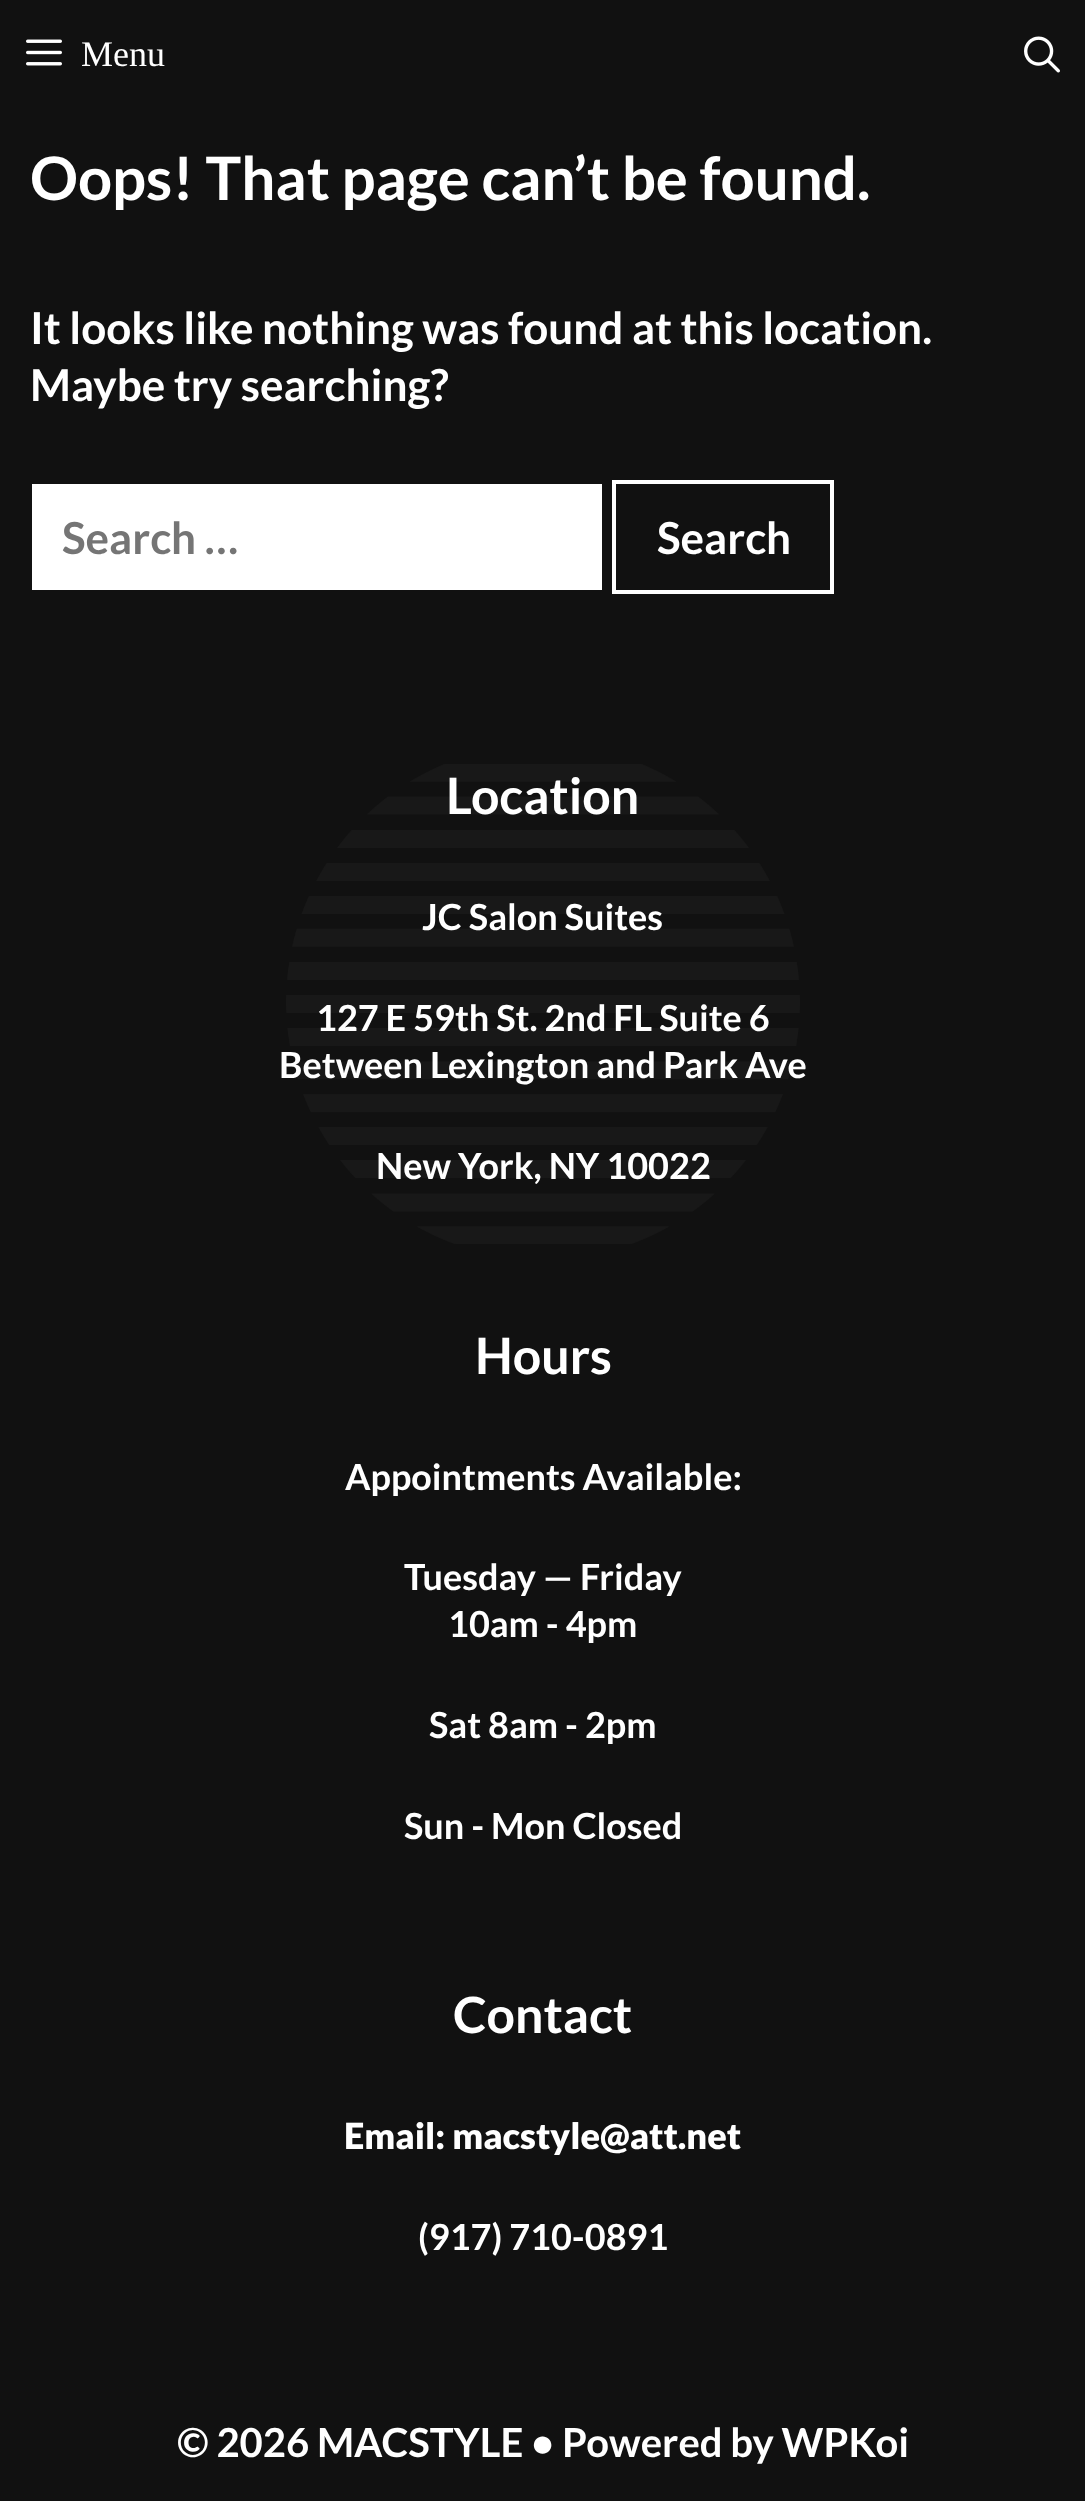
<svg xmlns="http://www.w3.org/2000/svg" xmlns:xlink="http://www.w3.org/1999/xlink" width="1085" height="2501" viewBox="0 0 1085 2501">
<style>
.cls-1{font:36px Liberation Serif;fill:#ffffff}
.cls-2{font:bold 60px Lato;fill:#ffffff}
.cls-3{font:bold 44px Lato;fill:#ffffff}
.cls-4{font:bold 44px Lato;fill:#757575}
.cls-5{font:bold 50px Lato;fill:#ffffff}
.cls-6{font:bold 36px Lato;fill:#ffffff}
.cls-7{font:900 36px Lato;fill:#ffffff}
.cls-8{font:bold 40px Lato;fill:#ffffff}
</style>
<rect width="100%" height="100%" fill="#111111"/>
<image xlink:href="image0.png" x="26" y="39" width="36" height="27"/>
<image xlink:href="image1.png" x="1024" y="36" width="36" height="37"/>
<rect fill="#ffffff" x="32" y="484" width="570" height="106"/>
<rect fill="none" stroke="#ffffff" stroke-width="4" x="614" y="482" width="218" height="110"/>
<image xlink:href="image2.png" x="286" y="764" width="514" height="480"/>
<text class="cls-1" x="81" y="66">Menu</text>
<text class="cls-2" x="30" y="200">Oops! That page can’t be found.</text>
<text class="cls-3"><tspan x="30" y="344">It looks like nothing was found at this location.</tspan><tspan x="30" y="401">Maybe try searching?</tspan></text>
<text class="cls-4" x="62" y="554">Search …</text>
<text class="cls-3" x="657" y="554">Search</text>
<text class="cls-5" x="446" y="814">Location</text>
<text class="cls-6" x="422" y="930">JC Salon Suites</text>
<text class="cls-6" x="316" y="1031">127 E 59th St. 2nd FL Suite 6</text>
<text class="cls-6" x="279" y="1078">Between Lexington and Park Ave</text>
<text class="cls-6" x="376" y="1179">New York, NY 10022</text>
<text class="cls-5" x="475" y="1374">Hours</text>
<text class="cls-6" x="345" y="1490">Appointments Available:</text>
<text class="cls-6" x="404" y="1590">Tuesday — Friday</text>
<text class="cls-6" x="448" y="1637">10am - 4pm</text>
<text class="cls-6" x="429" y="1738">Sat 8am - 2pm</text>
<text class="cls-6" x="404" y="1839">Sun - Mon Closed</text>
<text class="cls-5" x="453" y="2033">Contact</text>
<text class="cls-7" x="344" y="2149">Email: macstyle@att.net</text>
<text class="cls-6" x="418" y="2250">(917) 710-0891</text>
<text class="cls-8" x="177" y="2457">© 2026 MACSTYLE • Powered by WPKoi</text>
</svg>
